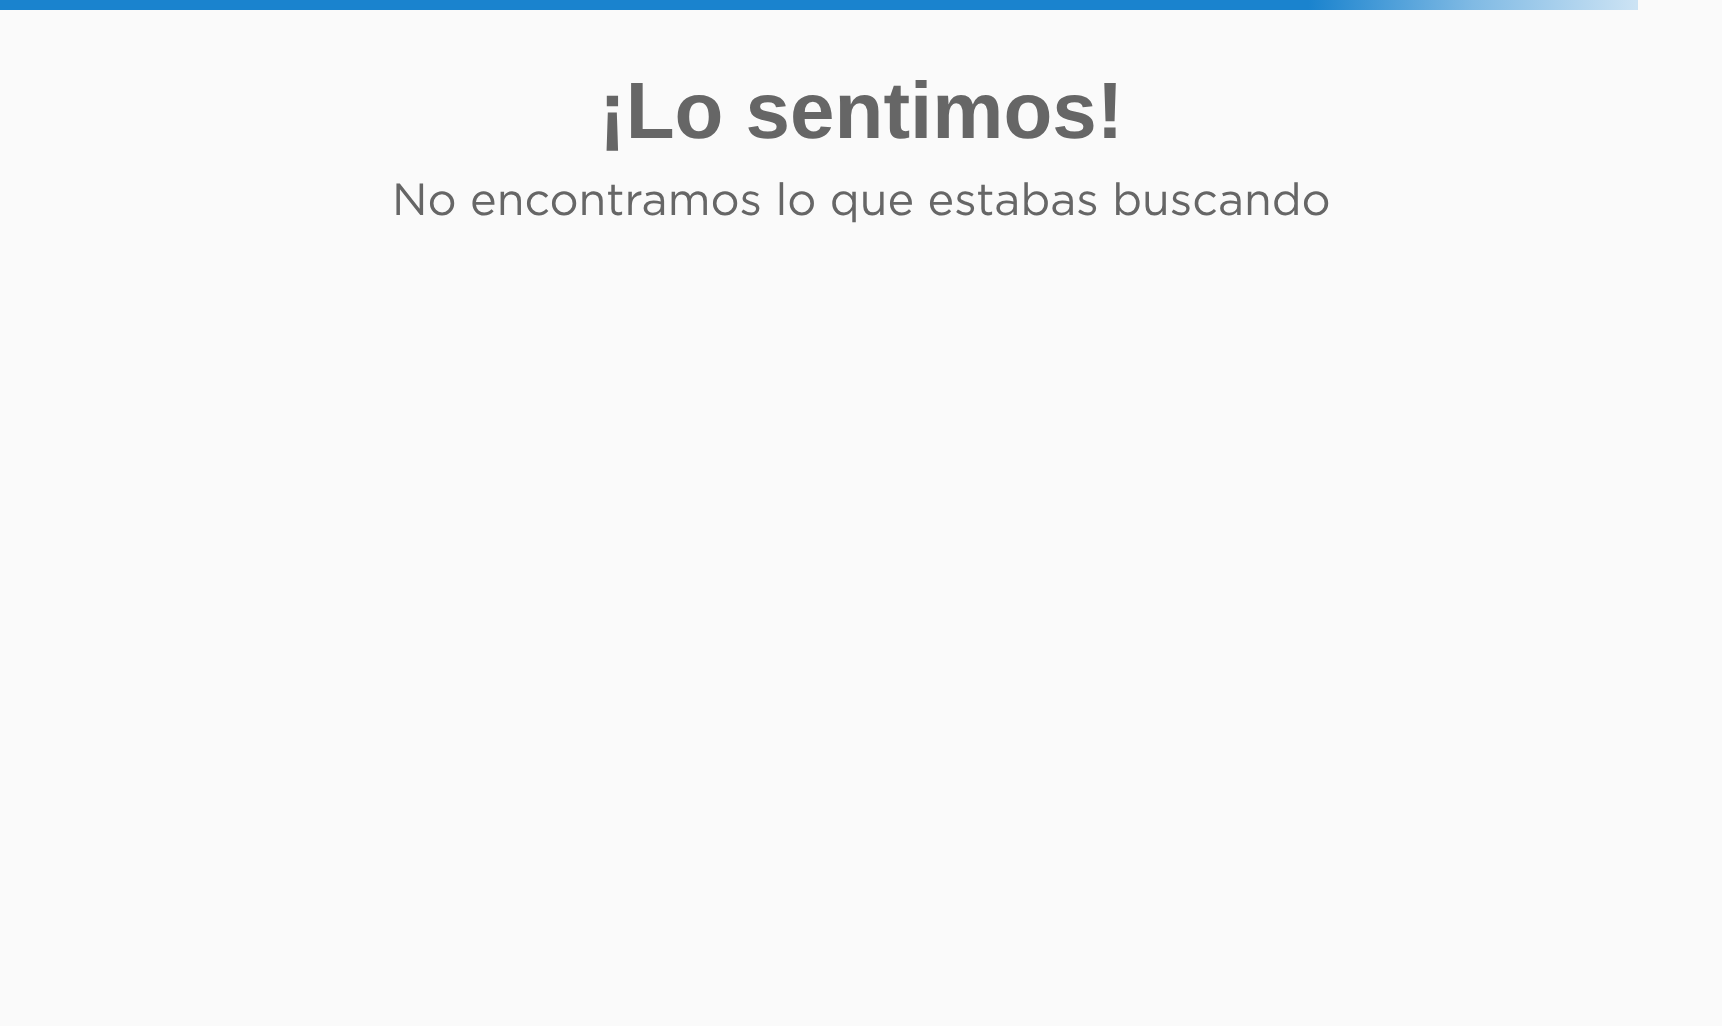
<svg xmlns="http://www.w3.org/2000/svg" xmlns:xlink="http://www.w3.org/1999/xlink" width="1722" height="1026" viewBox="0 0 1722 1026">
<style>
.cls-1{font:bold 80px Liberation Sans;fill:#666666}
.cls-2{font:45px Gotham;fill:#666666}
</style>
<defs>
<linearGradient id="g1" gradientUnits="userSpaceOnUse" x1="0" y1="5" x2="1636" y2="5"><stop offset="0.8" stop-color="#1a83ce"/><stop offset="0.9" stop-color="#80bae4"/><stop offset="1" stop-color="#cce3f4"/></linearGradient>
</defs>
<rect width="100%" height="100%" fill="#fafafa"/>
<rect fill="url(#g1)" x="0" y="0" width="1638" height="10"/>
<text class="cls-1" x="599" y="138">¡Lo sentimos!</text>
<text class="cls-2" x="392" y="215">No encontramos lo que estabas buscando</text>
</svg>
